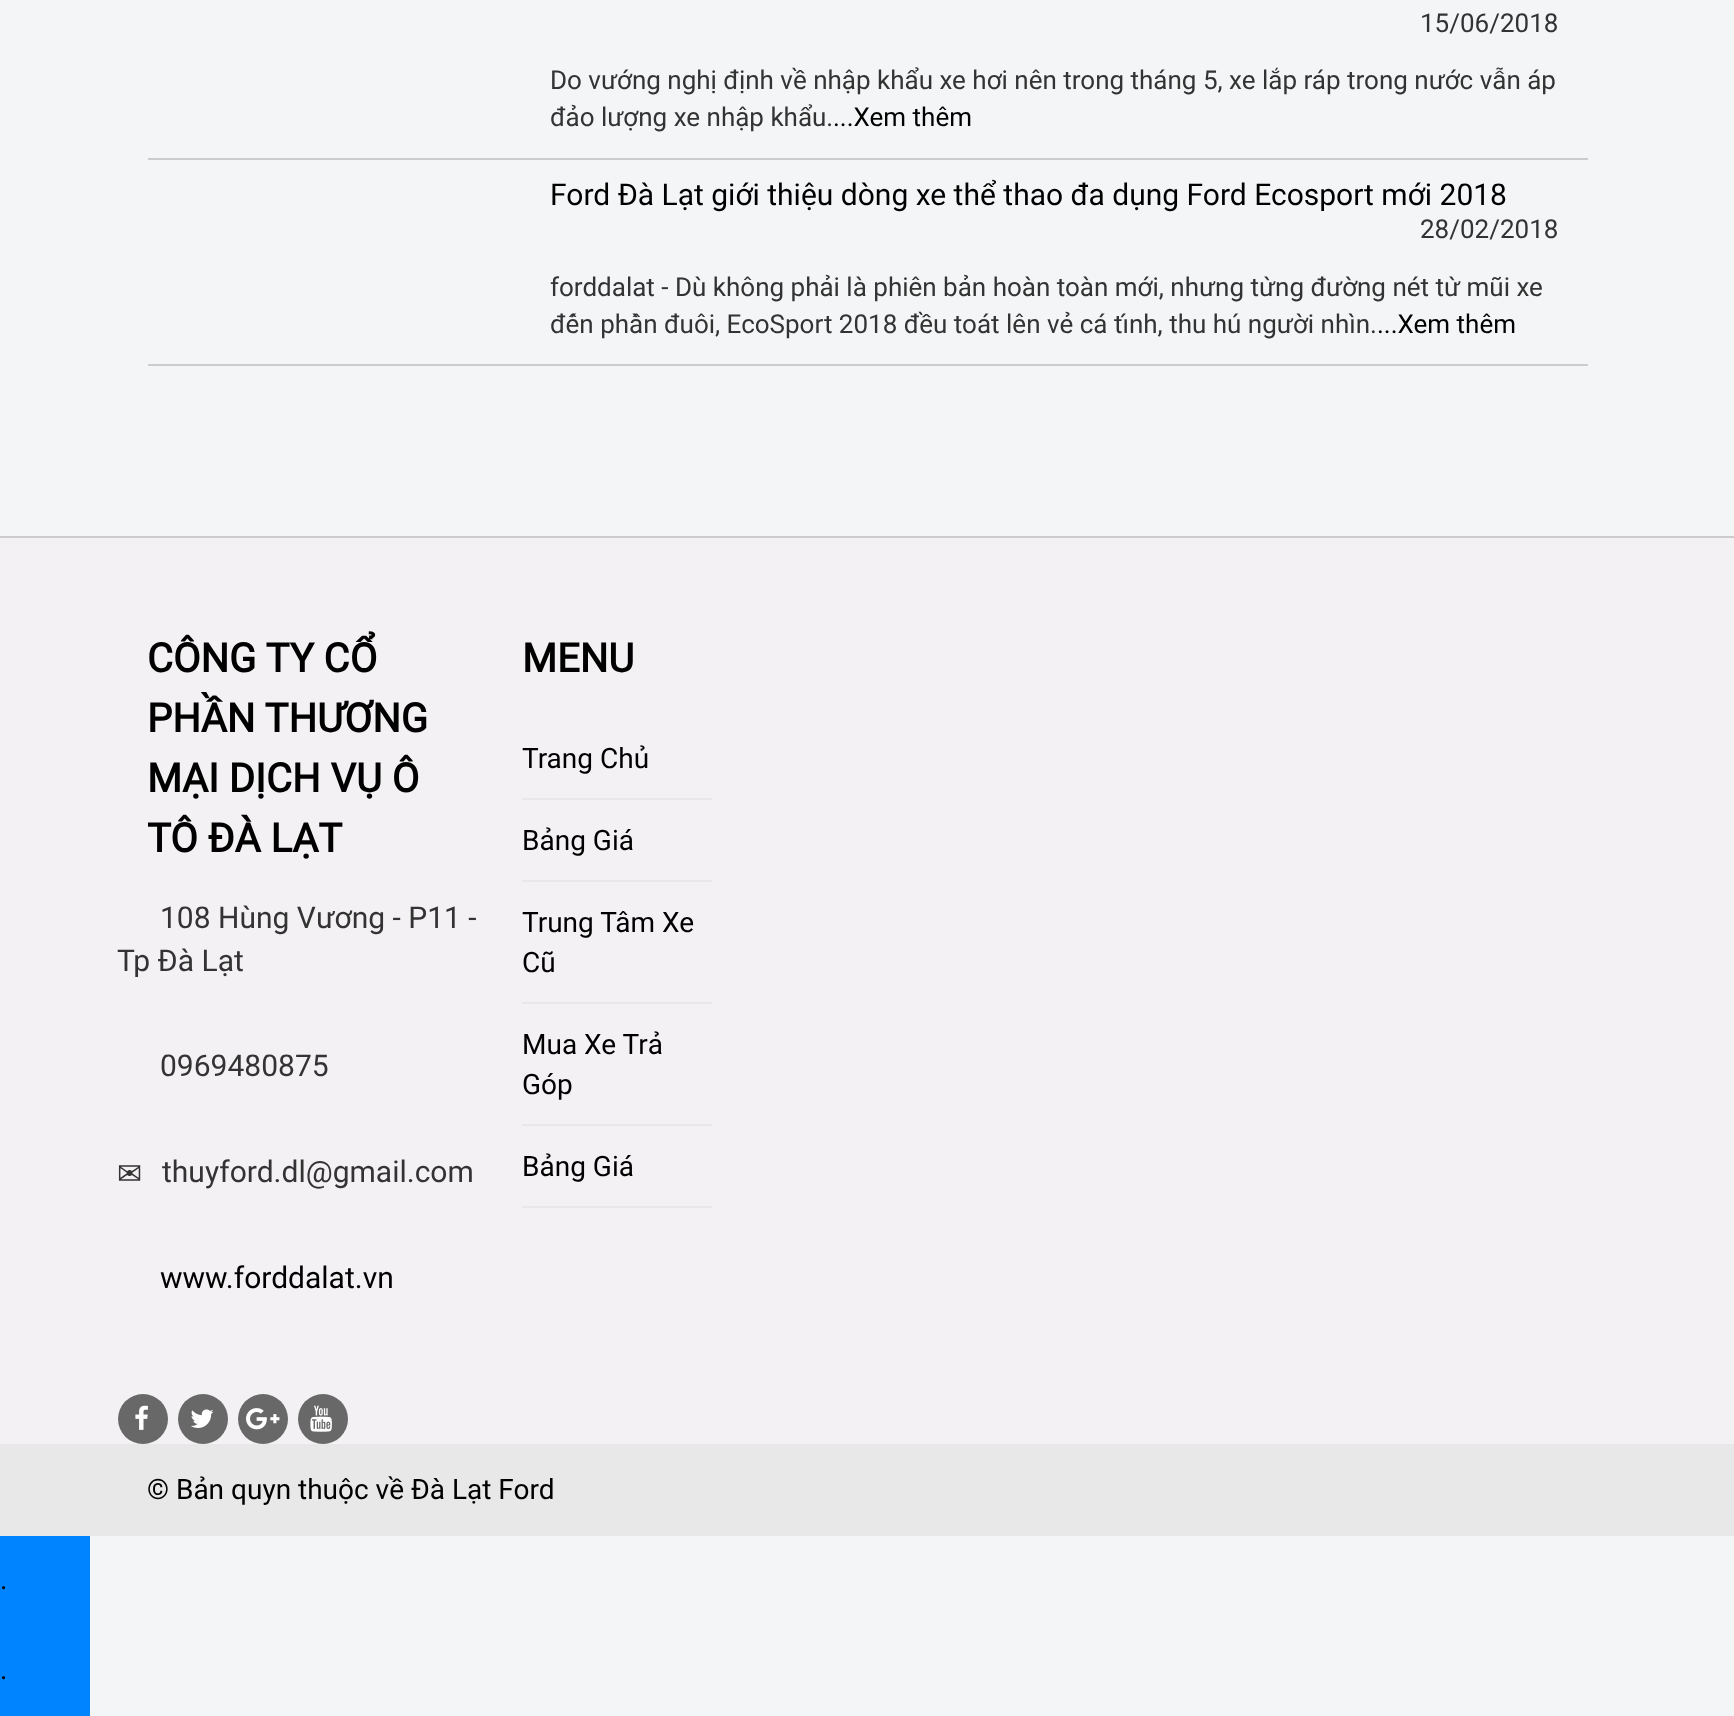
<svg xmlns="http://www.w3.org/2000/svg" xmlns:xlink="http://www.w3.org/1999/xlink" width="1734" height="1716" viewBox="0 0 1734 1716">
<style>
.cls-1{font:26px Roboto;fill:#333333}
.cls-2{font:26px Roboto;fill:#000000}
.cls-3{font:30px Roboto;fill:#000000}
.cls-4{font:bold 40px Roboto;fill:#000000}
.cls-5{font:30px Roboto;fill:#333333}
.cls-6{font:30px DejaVu Sans;fill:#333333}
.cls-7{font:28px Roboto;fill:#000000}
</style>
<rect width="100%" height="100%" fill="#f4f5f6"/>
<rect fill="#cccccc" x="148" y="158" width="1440" height="2"/>
<rect fill="#cccccc" x="148" y="364" width="1440" height="2"/>
<rect fill="#f3f1f3" x="0" y="538" width="1734" height="906"/>
<rect fill="#cccccc" x="0" y="536" width="1734" height="2"/>
<circle fill="#686868" cx="143" cy="1419" r="25"/>
<image xlink:href="image0.png" x="135" y="1405" width="13" height="25"/>
<circle fill="#686868" cx="203" cy="1419" r="25"/>
<image xlink:href="image1.png" x="191" y="1409" width="23" height="19"/>
<circle fill="#686868" cx="263" cy="1419" r="25"/>
<image xlink:href="image2.png" x="246" y="1408" width="34" height="22"/>
<circle fill="#686868" cx="323" cy="1419" r="25"/>
<image xlink:href="image3.png" x="310" y="1405" width="22" height="27"/>
<rect fill="#e8e8e8" x="522" y="798" width="190" height="2"/>
<rect fill="#e8e8e8" x="522" y="880" width="190" height="2"/>
<rect fill="#e8e8e8" x="522" y="1002" width="190" height="2"/>
<rect fill="#e8e8e8" x="522" y="1124" width="190" height="2"/>
<rect fill="#e8e8e8" x="522" y="1206" width="190" height="2"/>
<rect fill="#e8e8e8" x="0" y="1444" width="1734" height="92"/>
<rect fill="#0084ff" x="0" y="1536" width="90" height="180"/>
<text class="cls-1" x="1420" y="32">15/06/2018</text>
<text class="cls-1"><tspan x="550" y="89">Do vướng nghị định về nhập khẩu xe hơi nên trong tháng 5, xe lắp ráp trong nước vẫn áp</tspan><tspan x="550" y="126">đảo lượng xe nhập khẩu.</tspan></text>
<text class="cls-2" x="833" y="126">...Xem thêm</text>
<text class="cls-3" x="550" y="205">Ford Đà Lạt giới thiệu dòng xe thể thao đa dụng Ford Ecosport mới 2018</text>
<text class="cls-1" x="1420" y="238">28/02/2018</text>
<text class="cls-1"><tspan x="550" y="296">forddalat - Dù không phải là phiên bản hoàn toàn mới, nhưng từng đường nét từ mũi xe</tspan><tspan x="550" y="333">đến phần đuôi, EcoSport 2018 đều toát lên vẻ cá tính, thu hú người nhìn.</tspan></text>
<text class="cls-2" x="1377" y="333">...Xem thêm</text>
<text class="cls-4"><tspan x="147" y="672">CÔNG TY CỔ</tspan><tspan x="147" y="732">PHẦN THƯƠNG</tspan><tspan x="147" y="792">MẠI DỊCH VỤ Ô</tspan><tspan x="147" y="852">TÔ ĐÀ LẠT</tspan></text>
<text class="cls-5" x="160" y="928">108 Hùng Vương - P11 -</text>
<text class="cls-5" x="117" y="971">Tp Đà Lạt</text>
<text class="cls-5" x="160" y="1076">0969480875</text>
<text class="cls-6" x="117" y="1184">✉</text>
<text class="cls-5" x="162" y="1182">thuyford.dl@gmail.com</text>
<text class="cls-3" x="160" y="1288">www.forddalat.vn</text>
<text class="cls-4" x="522" y="672">MENU</text>
<text class="cls-7" x="522" y="768">Trang Chủ</text>
<text class="cls-7" x="522" y="850">Bảng Giá</text>
<text class="cls-7"><tspan x="522" y="932">Trung Tâm Xe</tspan><tspan x="522" y="972">Cũ</tspan></text>
<text class="cls-7"><tspan x="522" y="1054">Mua Xe Trả</tspan><tspan x="522" y="1094">Góp</tspan></text>
<text class="cls-7" x="522" y="1176">Bảng Giá</text>
<text class="cls-7" x="147" y="1499">© Bản quyn thuộc về Đà Lạt Ford</text>
<text class="cls-7" x="0" y="1589">.</text>
<text class="cls-7" x="0" y="1679">.</text>
</svg>
